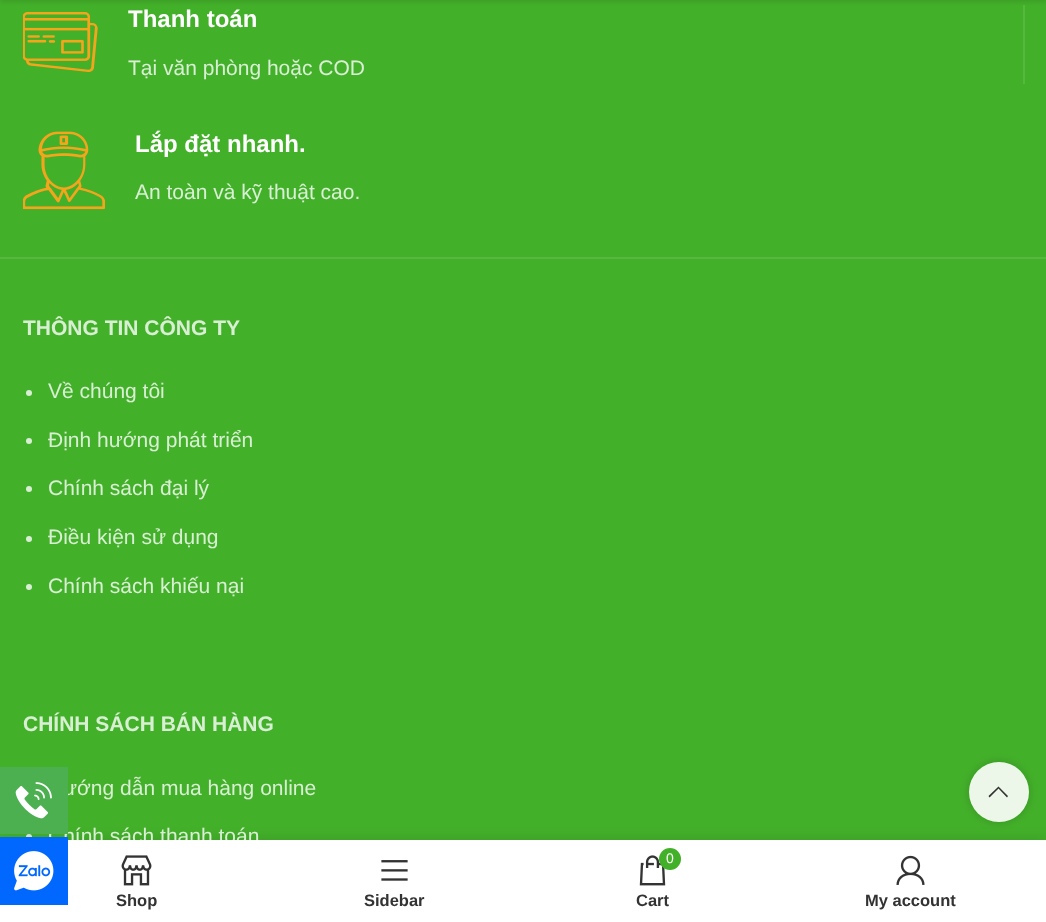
<svg xmlns="http://www.w3.org/2000/svg" xmlns:xlink="http://www.w3.org/1999/xlink" width="1046" height="922" viewBox="0 0 1046 922">
<style>
.cls-1{font:bold 24px Liberation Sans;fill:#ffffff}
.cls-2{font:21px Liberation Sans;fill:#d9efd4}
.cls-3{font:bold 21px Liberation Sans;fill:#d9efd4}
.cls-4{font:bold 16.5px Liberation Sans;fill:#333333}
.cls-5{font:14px Liberation Sans;fill:#ffffff}
</style>
<defs>
<clipPath id="clip1"><path d="M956 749H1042V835H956ZM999 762C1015.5 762 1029 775.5 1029 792C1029 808.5 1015.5 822 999 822C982.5 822 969 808.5 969 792C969 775.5 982.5 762 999 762Z" clip-rule="evenodd"/></clipPath>
</defs>
<rect width="100%" height="100%" fill="#43b02a"/>
<rect fill="#56b83f" x="1023" y="5" width="2" height="79"/>
<rect fill="#000000" fill-opacity="0.1" filter="blur(2px)" x="0" y="-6" width="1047" height="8"/>
<rect fill="#56b83f" x="0" y="257" width="1046" height="2"/>
<image xlink:href="image0.png" x="23" y="12" width="75" height="60"/>
<image xlink:href="image1.png" x="23" y="131" width="82" height="79"/>
<circle fill="#d9efd4" cx="29" cy="393" r="3"/>
<circle fill="#d9efd4" cx="29" cy="441" r="3"/>
<circle fill="#d9efd4" cx="29" cy="489" r="3"/>
<circle fill="#d9efd4" cx="29" cy="539" r="3"/>
<circle fill="#d9efd4" cx="29" cy="587" r="3"/>
<circle fill="#d9efd4" cx="29" cy="837" r="3"/>
<g clip-path="url(#clip1)">
<rect fill="#000000" fill-opacity="0.17" filter="blur(4px)" x="969" y="762" width="60" height="60" rx="30"/>
</g>
<circle fill="#ffffff" fill-opacity="0.9" cx="999" cy="792" r="30"/>
<path fill="#333333" d="M1007 797.5L1008 796L998.5 786.5L988.5 796L989.5 797.5L998.5 788.5Z"/>
<rect fill="#000000" fill-opacity="0.12" filter="blur(7px)" x="0" y="840" width="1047" height="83"/>
<text class="cls-1" x="128" y="27">Thanh toán</text>
<text class="cls-2" x="128" y="75">Tại văn phòng hoặc COD</text>
<text class="cls-1" x="135" y="152">Lắp đặt nhanh.</text>
<text class="cls-2" x="135" y="199">An toàn và kỹ thuật cao.</text>
<text class="cls-3" x="23" y="335">THÔNG TIN CÔNG TY</text>
<text class="cls-2" x="48" y="398">Về chúng tôi</text>
<text class="cls-2" x="48" y="447">Định hướng phát triển</text>
<text class="cls-2" x="48" y="495">Chính sách đại lý</text>
<text class="cls-2" x="48" y="544">Điều kiện sử dụng</text>
<text class="cls-2" x="48" y="593">Chính sách khiếu nại</text>
<text class="cls-3" x="23" y="731">CHÍNH SÁCH BÁN HÀNG</text>
<text class="cls-2" x="63" y="795">ướng dẫn mua hàng online</text>
<text class="cls-2" x="48" y="843">Chính sách thanh toán</text>
<rect fill="#4caf50" x="0" y="767" width="68" height="67"/>
<image xlink:href="image2.png" x="15" y="782" width="37" height="37"/>
<rect fill="#ffffff" x="0" y="840" width="1046" height="82"/>
<rect fill="#0068ff" x="0" y="837" width="68" height="68"/>
<image xlink:href="image3.png" x="14" y="851" width="40" height="40"/>
<image xlink:href="image4.png" x="121" y="855" width="31" height="31"/>
<text class="cls-4" x="116" y="906">Shop</text>
<image xlink:href="image5.png" x="381" y="860" width="27" height="21"/>
<text class="cls-4" x="364" y="906">Sidebar</text>
<image xlink:href="image6.png" x="639" y="855" width="27" height="31"/>
<circle fill="#43b02a" cx="670" cy="859" r="11"/>
<text class="cls-5" x="666" y="863">0</text>
<text class="cls-4" x="636" y="906">Cart</text>
<image xlink:href="image7.png" x="896" y="855" width="29" height="30"/>
<text class="cls-4" x="865" y="906">My account</text>
</svg>
